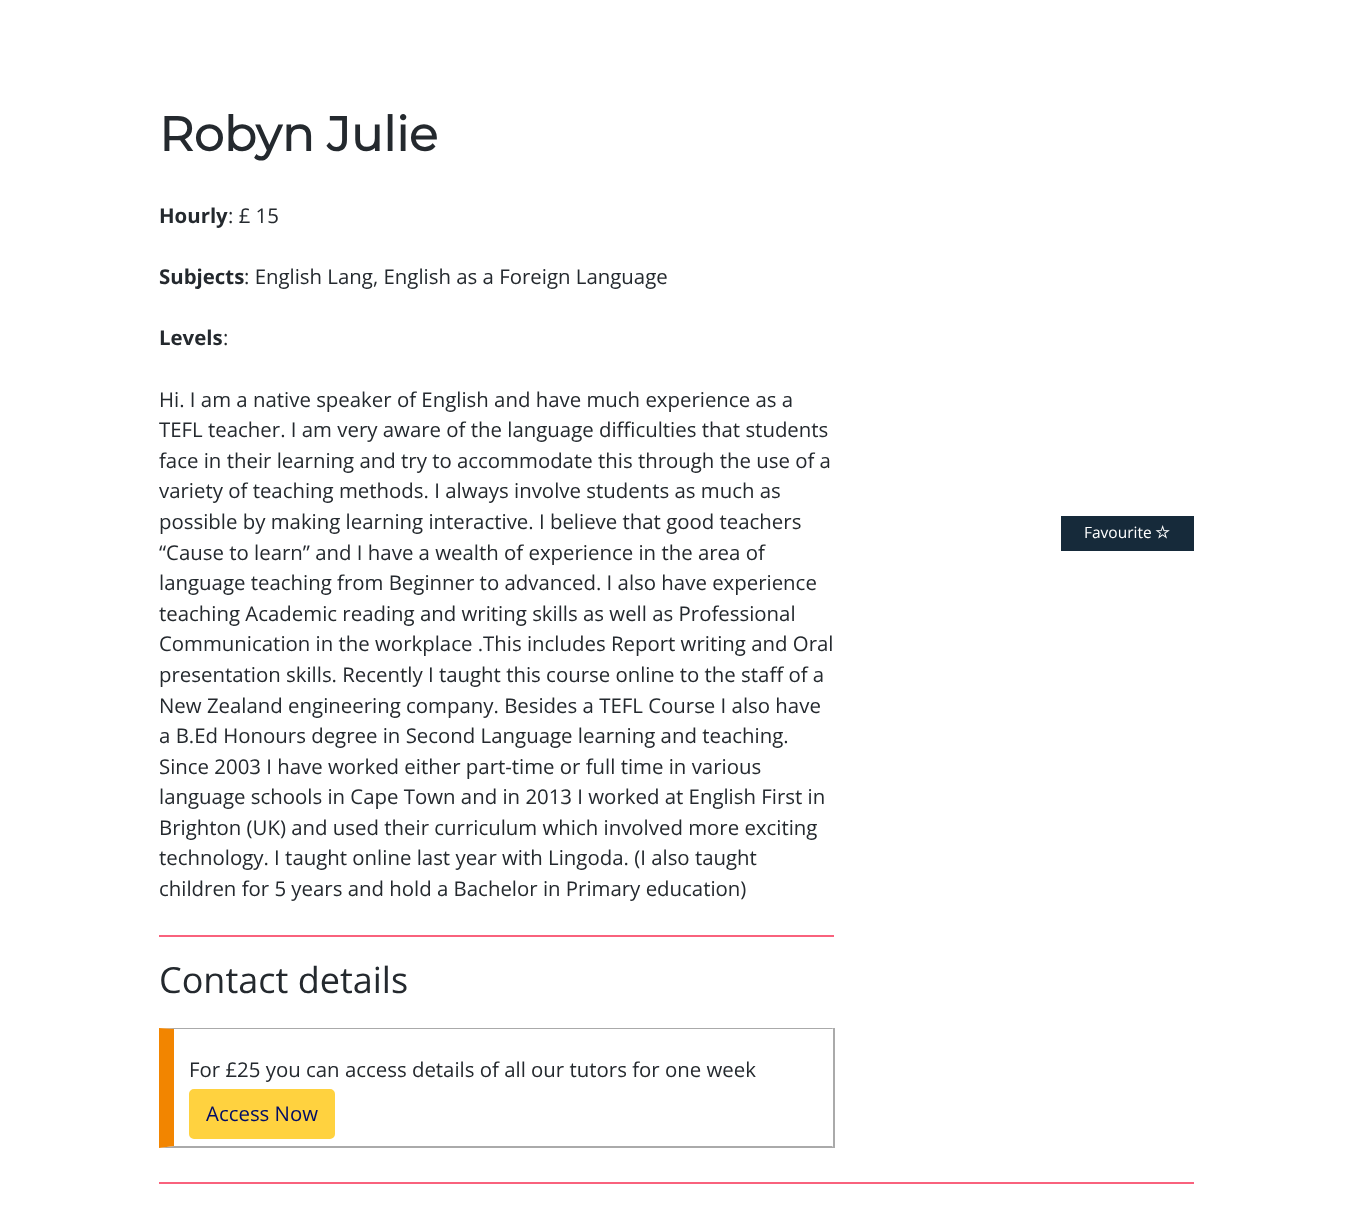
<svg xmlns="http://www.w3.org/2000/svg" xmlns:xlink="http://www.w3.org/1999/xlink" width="1353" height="1213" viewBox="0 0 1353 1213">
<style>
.cls-1{font:bold 48px Montserrat;fill:#24292e}
.cls-2{font:bold 20.4px Open Sans;fill:#24292e}
.cls-3{font:20.4px Open Sans;fill:#24292e}
.cls-4{font:36px Open Sans;fill:#24292e}
.cls-5{font:20.4px Open Sans;fill:#000c66}
.cls-6{font:15.5px Open Sans;fill:#ffffff}
</style>
<rect width="100%" height="100%" fill="#ffffff"/>
<rect fill="#f9627d" x="159" y="935" width="675" height="2"/>
<path fill="#aaaaaa" d="M159 1028H834L832 1029H174Z"/>
<rect fill="#aaaaaa" x="833" y="1028" width="2" height="120"/>
<path fill="#aaaaaa" d="M834 1148H159L174 1146H832Z"/>
<path fill="#f28500" d="M159 1148V1028L174 1029V1146Z"/>
<rect fill="#ffd23f" stroke="#ffd23f" stroke-width="2" x="190" y="1090" width="144" height="48" rx="4"/>
<rect fill="#162a3a" x="1061" y="516" width="133" height="35"/>
<image xlink:href="image0.png" x="1155" y="525" width="15" height="14"/>
<rect fill="#f9627d" x="159" y="1182" width="1035" height="2"/>
<text class="cls-1" x="159" y="151">Robyn Julie</text>
<text class="cls-2" x="159" y="223">Hourly</text>
<text class="cls-3" x="228" y="223">: £ 15</text>
<text class="cls-2" x="159" y="284">Subjects</text>
<text class="cls-3" x="244" y="284">: English Lang, English as a Foreign Language</text>
<text class="cls-2" x="159" y="345">Levels</text>
<text class="cls-3" x="223" y="345">:</text>
<text class="cls-3"><tspan x="159" y="407">Hi. I am a native speaker of English and have much experience as a</tspan><tspan x="159" y="437">TEFL teacher. I am very aware of the language difficulties that students</tspan><tspan x="159" y="468">face in their learning and try to accommodate this through the use of a</tspan><tspan x="159" y="498">variety of teaching methods. I always involve students as much as</tspan><tspan x="159" y="529">possible by making learning interactive. I believe that good teachers</tspan><tspan x="159" y="560">“Cause to learn” and I have a wealth of experience in the area of</tspan><tspan x="159" y="590">language teaching from Beginner to advanced. I also have experience</tspan><tspan x="159" y="621">teaching Academic reading and writing skills as well as Professional</tspan><tspan x="159" y="651">Communication in the workplace .This includes Report writing and Oral</tspan><tspan x="159" y="682">presentation skills. Recently I taught this course online to the staff of a</tspan><tspan x="159" y="713">New Zealand engineering company. Besides a TEFL Course I also have</tspan><tspan x="159" y="743">a B.Ed Honours degree in Second Language learning and teaching.</tspan><tspan x="159" y="774">Since 2003 I have worked either part-time or full time in various</tspan><tspan x="159" y="804">language schools in Cape Town and in 2013 I worked at English First in</tspan><tspan x="159" y="835">Brighton (UK) and used their curriculum which involved more exciting</tspan><tspan x="159" y="865">technology. I taught online last year with Lingoda. (I also taught</tspan><tspan x="159" y="896">children for 5 years and hold a Bachelor in Primary education)</tspan></text>
<text class="cls-4" x="159" y="993">Contact details</text>
<text class="cls-3" x="189" y="1077">For £25 you can access details of all our tutors for one week</text>
<text class="cls-5" x="206" y="1121">Access Now</text>
<text class="cls-6" x="1084" y="538">Favourite</text>
</svg>
